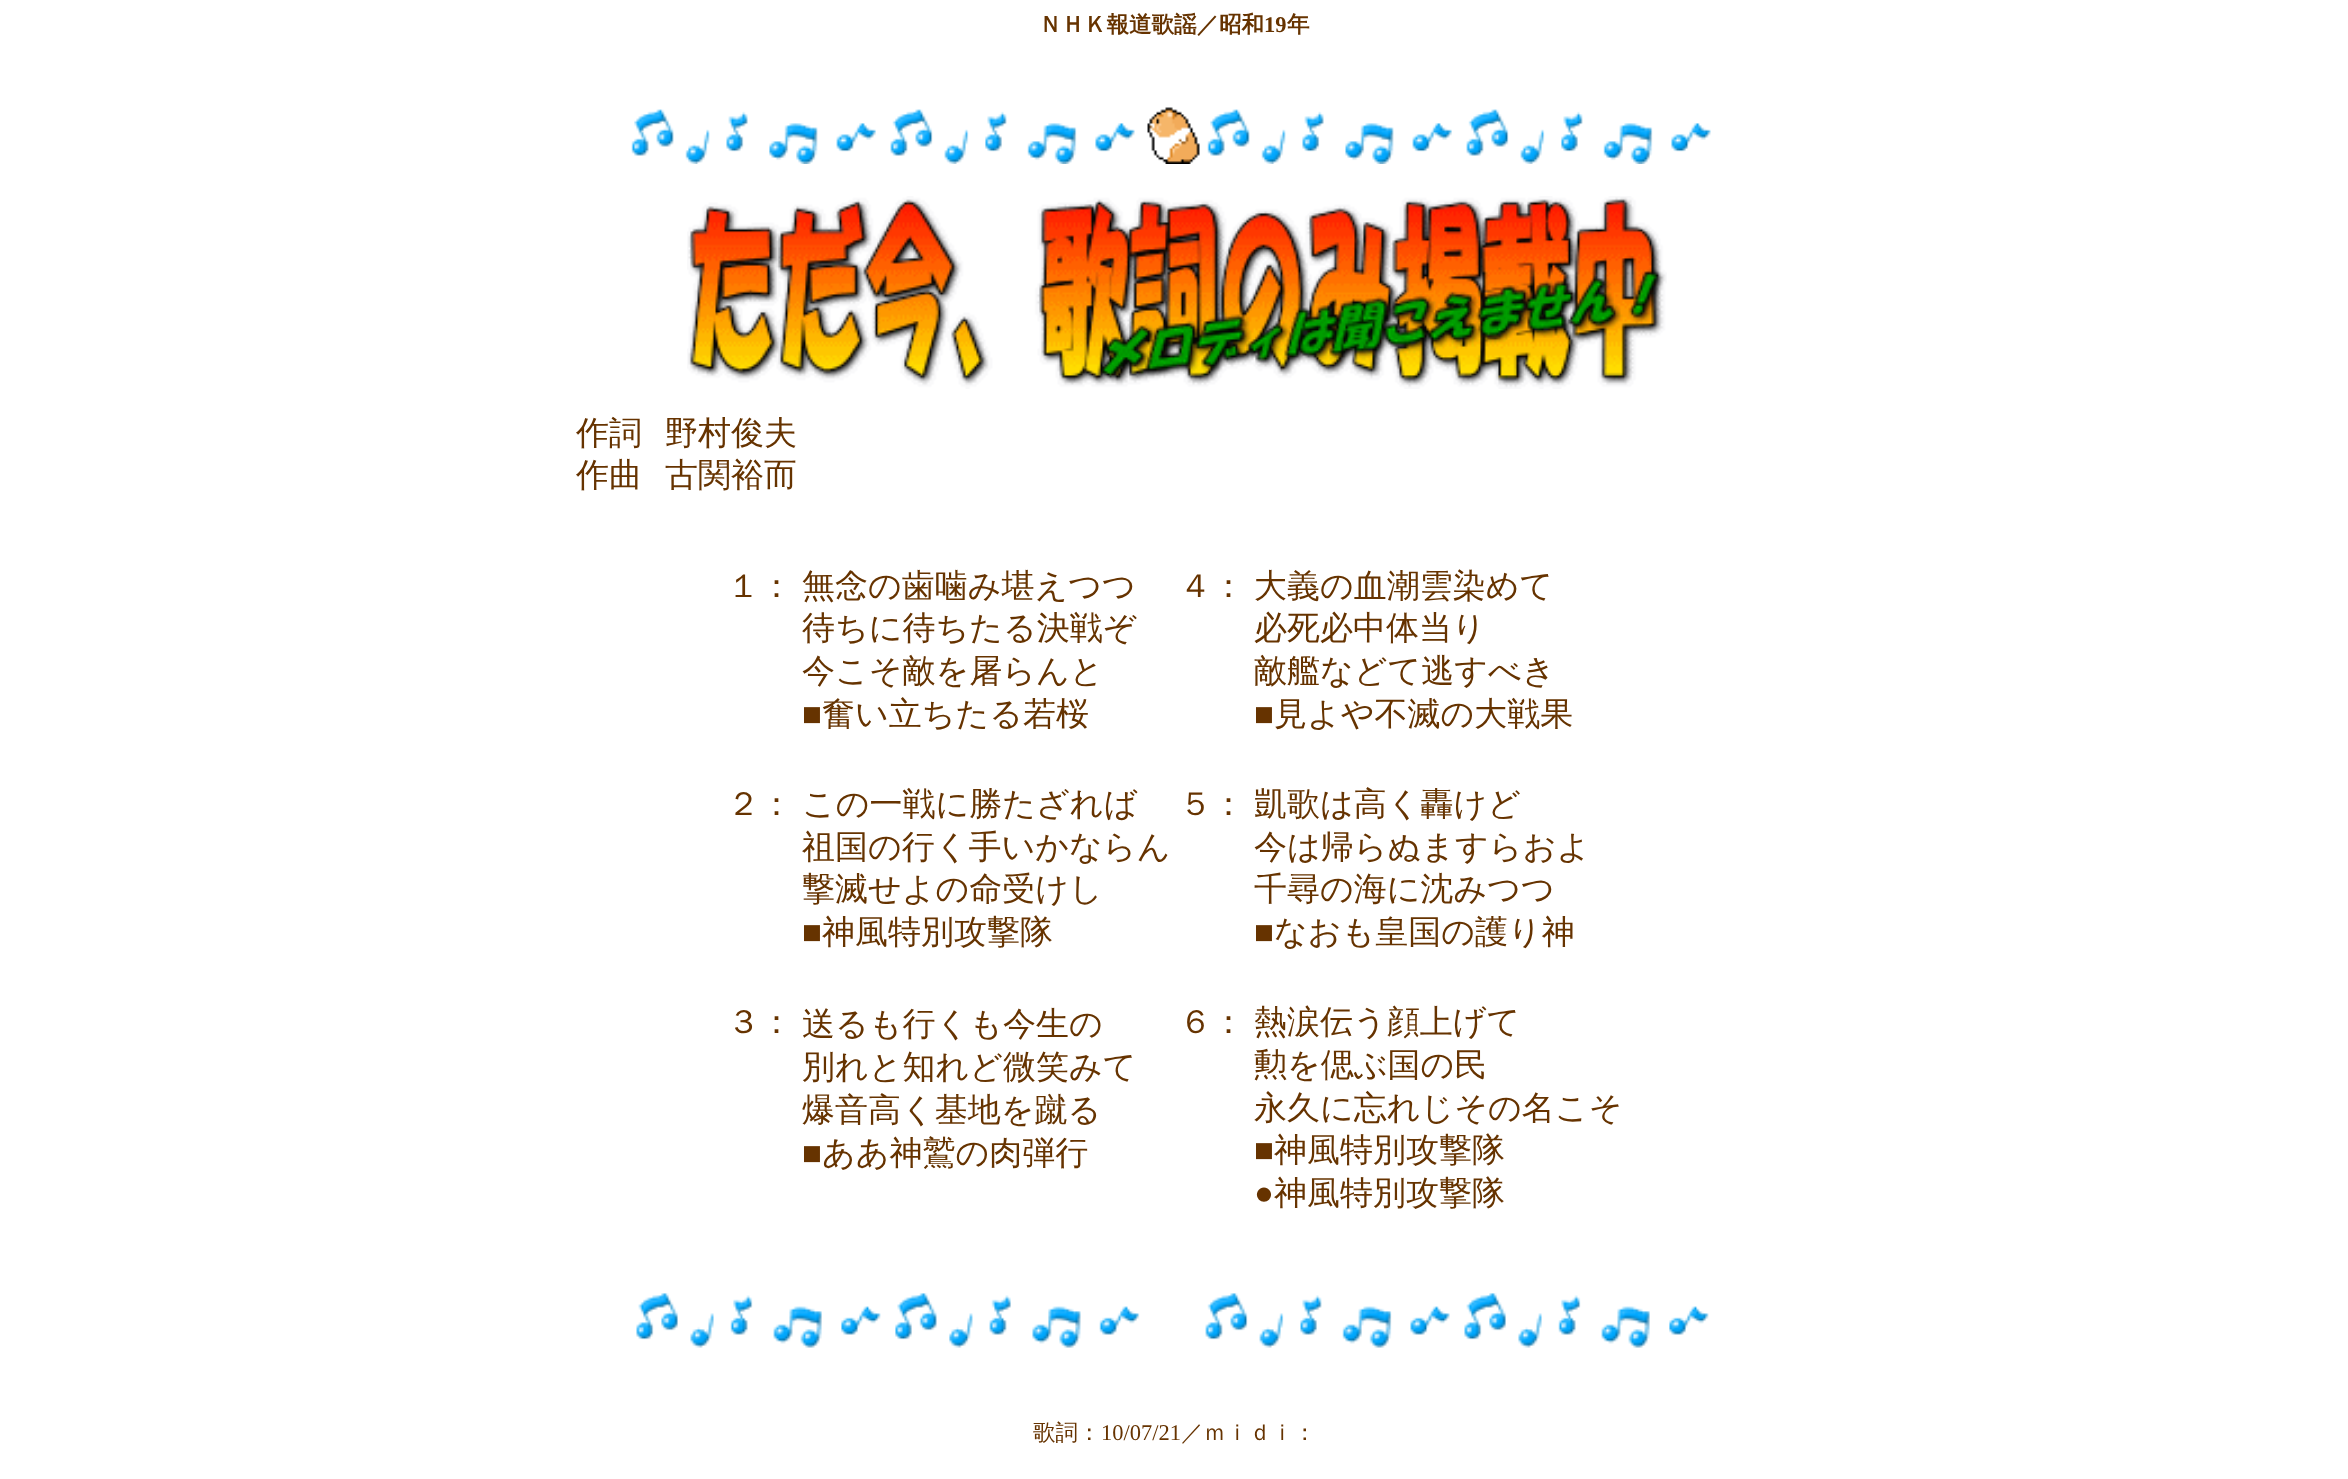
<svg xmlns="http://www.w3.org/2000/svg" xmlns:xlink="http://www.w3.org/1999/xlink" width="2348" height="1479" viewBox="0 0 2348 1479">
<style>
.cls-1{font:bold 22.5px WenQuanYi Zen Hei;fill:#663300}
.cls-2{font:bold 22.5px Liberation Serif;fill:#663300}
.cls-3{font:500 33px WenQuanYi Zen Hei;fill:#663300}
.cls-4{font:33px Liberation Serif;fill:#663300}
.cls-5{font:500 22.5px WenQuanYi Zen Hei;fill:#663300}
.cls-6{font:22.5px Liberation Serif;fill:#663300}
</style>
<rect width="100%" height="100%" fill="#ffffff"/>
<image xlink:href="image0.png" x="631" y="109" width="504" height="55"/>
<image xlink:href="image1.png" x="1147" y="107" width="53" height="57"/>
<image xlink:href="image2.png" x="1207" y="109" width="504" height="55"/>
<image xlink:href="image3.png" x="687" y="196" width="980" height="193"/>
<image xlink:href="image4.png" x="636" y="1293" width="504" height="55"/>
<image xlink:href="image5.png" x="1205" y="1293" width="504" height="55"/>
<text class="cls-1" x="1039" y="32">ＮＨＫ報道歌謡／昭和</text>
<text class="cls-2" x="1264" y="32">19</text>
<text class="cls-1" x="1287" y="32">年</text>
<text class="cls-3"><tspan x="576" y="444">作詞</tspan><tspan x="576" y="486">作曲</tspan></text>
<text class="cls-3"><tspan x="665" y="444">野村俊夫</tspan><tspan x="665" y="486">古関裕而</tspan></text>
<text class="cls-3" x="727" y="597">１：</text>
<text class="cls-3"><tspan x="802" y="597">無念の歯噛み堪えつつ</tspan><tspan x="802" y="639">待ちに待ちたる決戦ぞ</tspan><tspan x="802" y="682">今こそ敵を屠らんと</tspan></text>
<text class="cls-4" x="802" y="725">■</text>
<text class="cls-3" x="822" y="725">奮い立ちたる若桜</text>
<text class="cls-3" x="1179" y="597">４：</text>
<text class="cls-3"><tspan x="1254" y="597">大義の血潮雲染めて</tspan><tspan x="1254" y="639">必死必中体当り</tspan><tspan x="1254" y="682">敵艦などて逃すべき</tspan></text>
<text class="cls-4" x="1254" y="725">■</text>
<text class="cls-3" x="1274" y="725">見よや不滅の大戦果</text>
<text class="cls-3" x="727" y="815">２：</text>
<text class="cls-3"><tspan x="802" y="815">この一戦に勝たざれば</tspan><tspan x="802" y="858">祖国の行く手いかならん</tspan><tspan x="802" y="900">撃滅せよの命受けし</tspan></text>
<text class="cls-4" x="802" y="943">■</text>
<text class="cls-3" x="822" y="943">神風特別攻撃隊</text>
<text class="cls-3" x="1179" y="815">５：</text>
<text class="cls-3"><tspan x="1254" y="815">凱歌は高く轟けど</tspan><tspan x="1254" y="858">今は帰らぬますらおよ</tspan><tspan x="1254" y="900">千尋の海に沈みつつ</tspan></text>
<text class="cls-4" x="1254" y="943">■</text>
<text class="cls-3" x="1274" y="943">なおも皇国の護り神</text>
<text class="cls-3" x="727" y="1033">３：</text>
<text class="cls-3"><tspan x="802" y="1035">送るも行くも今生の</tspan><tspan x="802" y="1078">別れと知れど微笑みて</tspan><tspan x="802" y="1121">爆音高く基地を蹴る</tspan></text>
<text class="cls-4" x="802" y="1164">■</text>
<text class="cls-3" x="822" y="1164">ああ神鷲の肉弾行</text>
<text class="cls-3" x="1179" y="1033">６：</text>
<text class="cls-3"><tspan x="1254" y="1033">熱涙伝う顔上げて</tspan><tspan x="1254" y="1076">勲を偲ぶ国の民</tspan><tspan x="1254" y="1119">永久に忘れじその名こそ</tspan></text>
<text class="cls-4" x="1254" y="1161">■</text>
<text class="cls-3" x="1274" y="1161">神風特別攻撃隊</text>
<text class="cls-4" x="1254" y="1204">●</text>
<text class="cls-3" x="1274" y="1204">神風特別攻撃隊</text>
<text class="cls-5" x="1033" y="1440">歌詞：</text>
<text class="cls-6" x="1101" y="1440">10/07/21</text>
<text class="cls-5" x="1181" y="1440">／ｍｉｄｉ：</text>
</svg>
